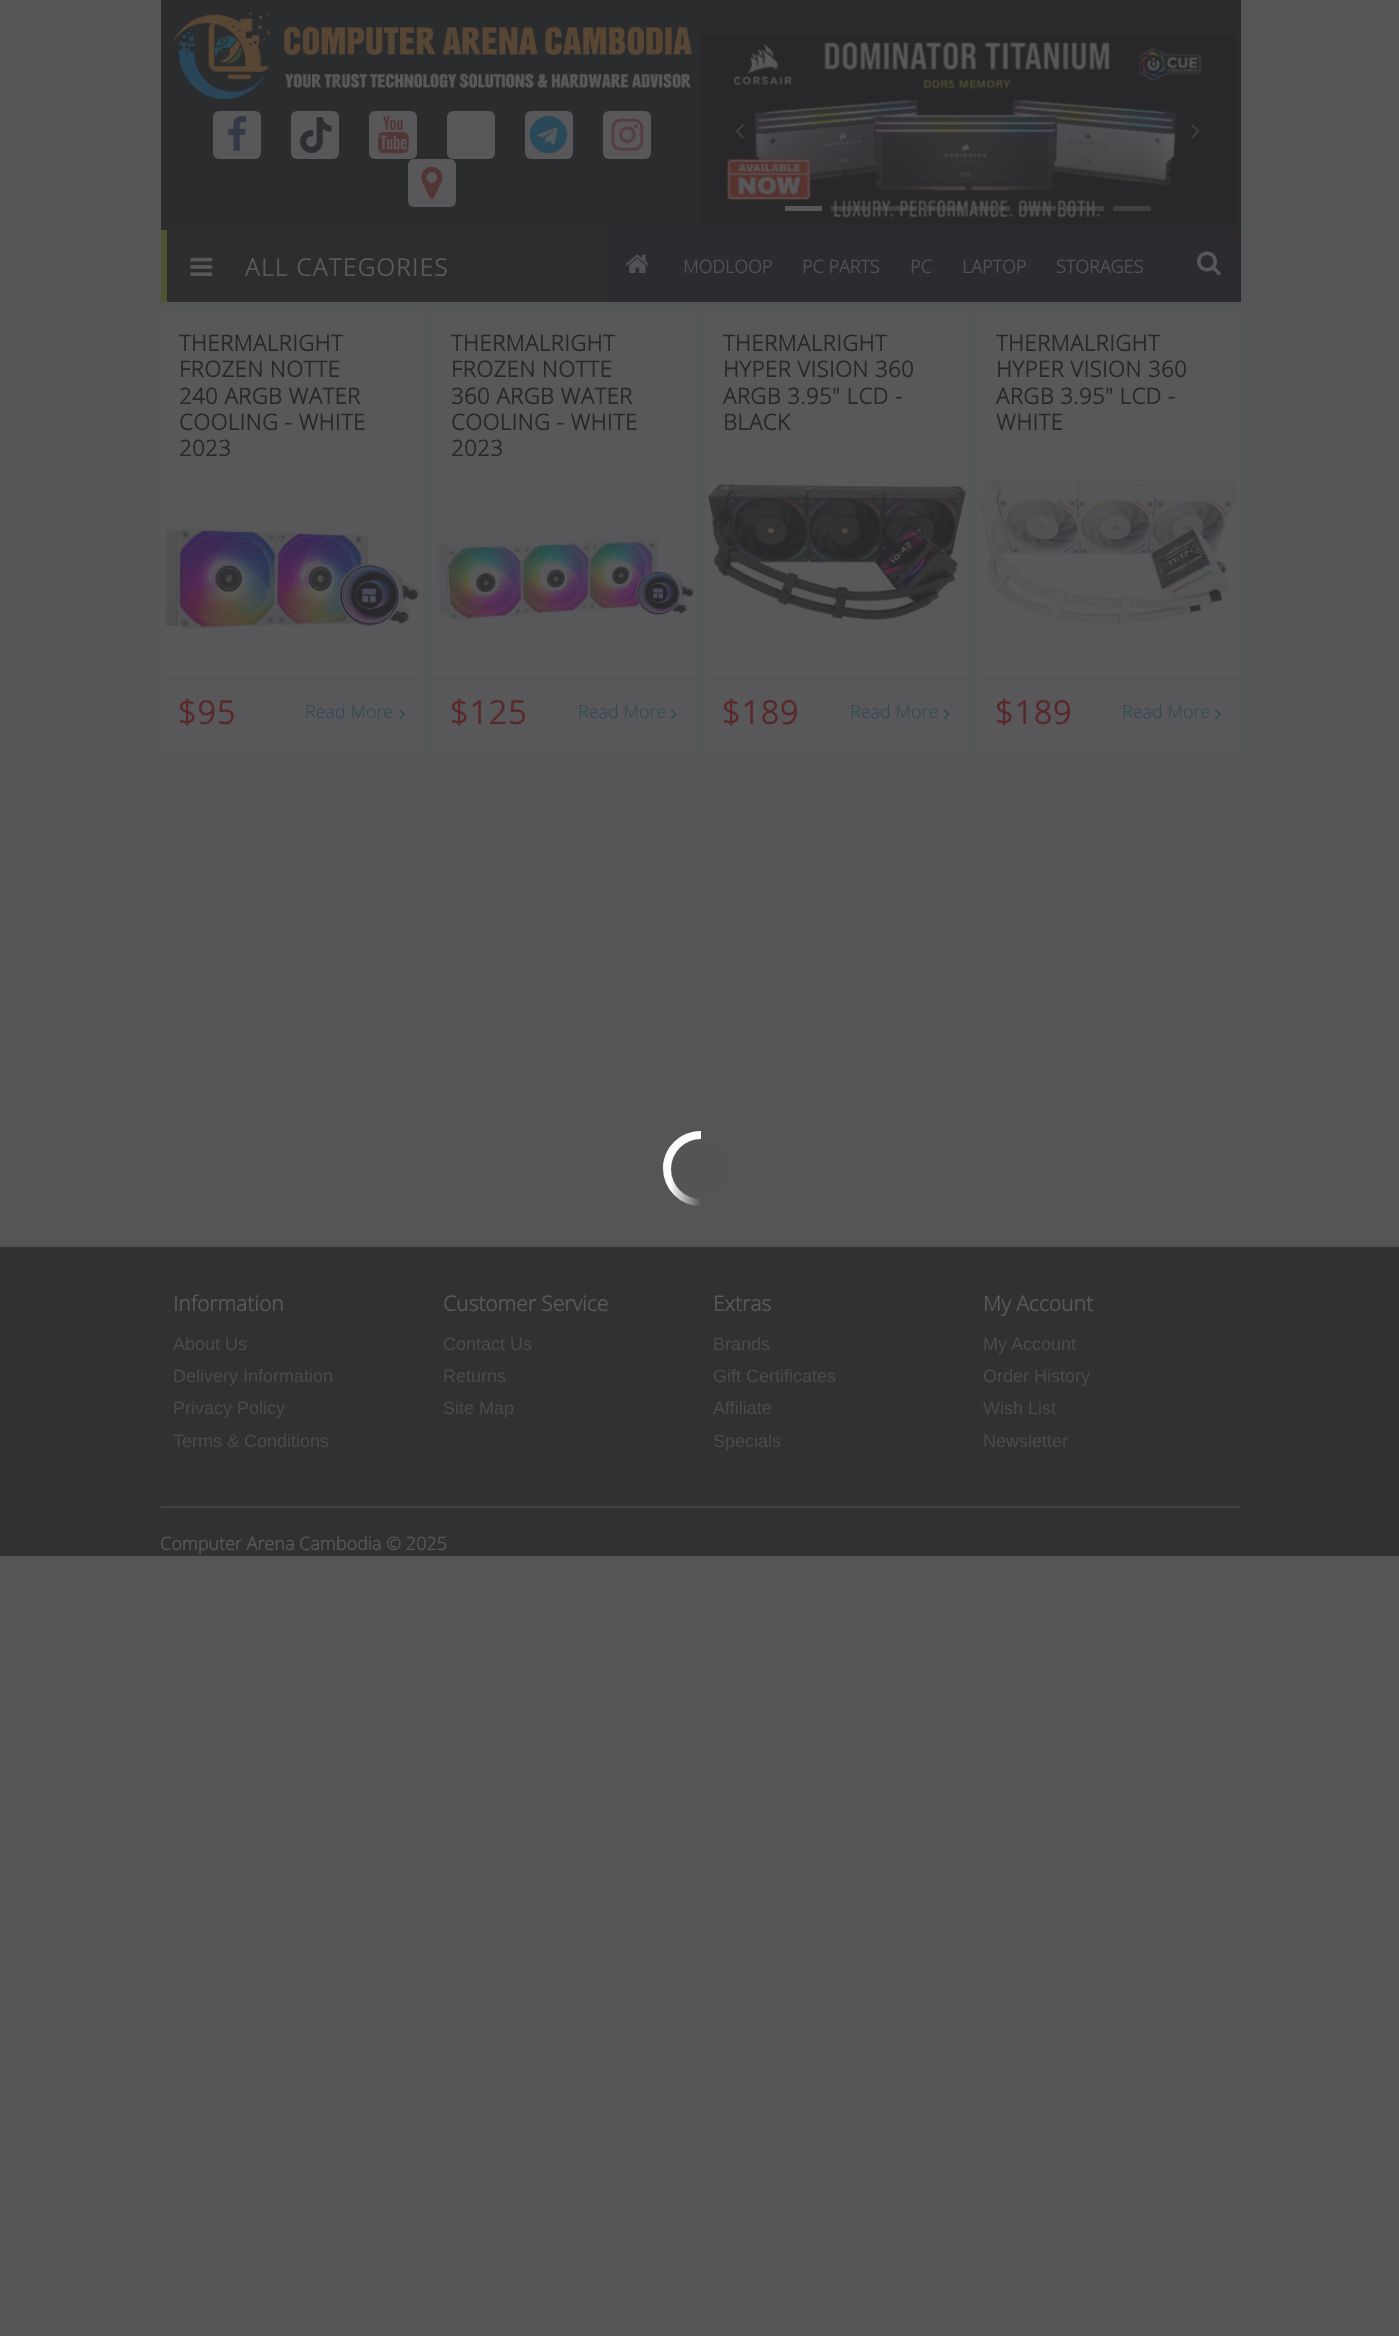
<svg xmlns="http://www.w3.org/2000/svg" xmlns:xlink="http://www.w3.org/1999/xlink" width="1399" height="2336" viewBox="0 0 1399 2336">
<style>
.cls-1{font:bold 24px Open Sans;letter-spacing:1.5px;fill:#58585b}
.cls-2{font:bold 18px Open Sans;fill:#515052}
.cls-3{font:bold 22px Open Sans;letter-spacing:0.5px;fill:#28282a}
.cls-4{font:bold 32px Open Sans;letter-spacing:1px;fill:#58282a}
.cls-5{font:300 18px Open Sans;fill:#2e4652}
.cls-6{font:bold 21px Open Sans;fill:#58585b}
.cls-7{font:18px Liberation Sans;fill:#4b4b4e}
.cls-8{font:bold 18px Open Sans;fill:#58585b}
</style>
<defs>
<linearGradient id="g1" gradientUnits="userSpaceOnUse" x1="663" y1="1169" x2="738" y2="1169"><stop offset="0.1" stop-color="#fbfbfc"/><stop offset="0.5" stop-color="#545557"/></linearGradient>
</defs>
<rect width="100%" height="100%" fill="#545557"/>
<rect fill="#2b2c2e" x="161" y="0" width="1080" height="230"/>
<image xlink:href="image0.png" x="172" y="12" width="520" height="88"/>
<rect fill="#58585a" x="213" y="111" width="48" height="48" rx="6"/>
<image xlink:href="image1.png" x="228" y="116" width="19" height="35"/>
<rect fill="#58585a" x="291" y="111" width="48" height="48" rx="6"/>
<image xlink:href="image2.png" x="300" y="117" width="32" height="36"/>
<rect fill="#58585a" x="369" y="111" width="48" height="48" rx="6"/>
<image xlink:href="image3.png" x="377" y="116" width="32" height="38"/>
<rect fill="#58585a" x="447" y="111" width="48" height="48" rx="6"/>
<rect fill="#58585a" x="525" y="111" width="48" height="48" rx="6"/>
<image xlink:href="image4.png" x="529" y="116" width="38" height="38"/>
<rect fill="#58585a" x="603" y="111" width="48" height="48" rx="6"/>
<image xlink:href="image5.png" x="611" y="118" width="33" height="33"/>
<rect fill="#58585a" x="408" y="159" width="48" height="48" rx="6"/>
<image xlink:href="image6.png" x="421" y="166" width="22" height="33"/>
<image xlink:href="image7.png" x="700" y="36" width="536" height="189"/>
<image xlink:href="image8.png" x="735" y="124" width="9" height="15"/>
<image xlink:href="image9.png" x="1191" y="124" width="9" height="15"/>
<rect fill="#58585b" x="785" y="206" width="37" height="5"/>
<rect fill="#58585b" fill-opacity="0.5" x="831" y="206" width="39" height="5"/>
<rect fill="#58585b" fill-opacity="0.5" x="879" y="206" width="38" height="5"/>
<rect fill="#58585b" fill-opacity="0.5" x="926" y="206" width="37" height="5"/>
<rect fill="#58585b" fill-opacity="0.5" x="972" y="206" width="38" height="5"/>
<rect fill="#58585b" fill-opacity="0.5" x="1019" y="206" width="37" height="5"/>
<rect fill="#58585b" fill-opacity="0.5" x="1065" y="206" width="39" height="5"/>
<rect fill="#404042" x="1113" y="206" width="38" height="5"/>
<rect fill="#2d2d2f" x="167" y="230" width="444" height="72"/>
<rect fill="#4f5531" x="161" y="230" width="6" height="72"/>
<image xlink:href="image10.png" x="190" y="257" width="23" height="19"/>
<rect fill="#2d2b30" x="611" y="230" width="630" height="72"/>
<image xlink:href="image11.png" x="625" y="254" width="24" height="19"/>
<image xlink:href="image12.png" x="1197" y="251" width="24" height="25"/>
<rect fill="#58585b" x="161" y="312" width="262" height="440"/>
<image xlink:href="image13.png" x="160" y="480" width="262" height="197"/>
<rect fill="#555557" x="161" y="678" width="262" height="2"/>
<image xlink:href="image14.png" x="399" y="709" width="6" height="11"/>
<rect fill="#58585b" x="432" y="312" width="264" height="440"/>
<image xlink:href="image15.png" x="435" y="536" width="261" height="85"/>
<rect fill="#555557" x="432" y="678" width="264" height="2"/>
<image xlink:href="image16.png" x="670" y="709" width="7" height="11"/>
<rect fill="#58585b" x="705" y="312" width="263" height="440"/>
<image xlink:href="image17.png" x="706" y="484" width="260" height="139"/>
<rect fill="#555557" x="705" y="678" width="263" height="2"/>
<image xlink:href="image16.png" x="943" y="709" width="7" height="11"/>
<rect fill="#58585b" x="977" y="312" width="264" height="440"/>
<image xlink:href="image18.png" x="976" y="453" width="263" height="198"/>
<rect fill="#555557" x="977" y="678" width="264" height="2"/>
<image xlink:href="image14.png" x="1215" y="709" width="6" height="11"/>
<circle fill="url(#g1)" cx="700.5" cy="1168.5" r="37.5"/>
<path fill="#fbfbfc" d="M701 1131V1169H663C663 1148 680 1131 701 1131Z"/>
<circle fill="#535456" cx="701" cy="1169" r="30"/>
<rect fill="#313134" x="0" y="1247" width="1399" height="309"/>
<rect fill="#525254" x="0" y="1245" width="1399" height="2"/>
<rect fill="#424244" x="161" y="1506" width="1080" height="2"/>
<text class="cls-1" x="245" y="276">ALL CATEGORIES</text>
<text class="cls-2" x="683" y="273">MODLOOP</text>
<text class="cls-2" x="802" y="273">PC PARTS</text>
<text class="cls-2" x="910" y="273">PC</text>
<text class="cls-2" x="962" y="273">LAPTOP</text>
<text class="cls-2" x="1056" y="273">STORAGES</text>
<text class="cls-3"><tspan x="179" y="351">THERMALRIGHT</tspan><tspan x="179" y="377">FROZEN NOTTE</tspan><tspan x="179" y="404">240 ARGB WATER</tspan><tspan x="179" y="430">COOLING - WHITE</tspan><tspan x="179" y="456">2023</tspan></text>
<text class="cls-4" x="178" y="724">$95</text>
<text class="cls-5" x="305" y="718">Read More</text>
<text class="cls-3"><tspan x="451" y="351">THERMALRIGHT</tspan><tspan x="451" y="377">FROZEN NOTTE</tspan><tspan x="451" y="404">360 ARGB WATER</tspan><tspan x="451" y="430">COOLING - WHITE</tspan><tspan x="451" y="456">2023</tspan></text>
<text class="cls-4" x="450" y="724">$125</text>
<text class="cls-5" x="578" y="718">Read More</text>
<text class="cls-3"><tspan x="723" y="351">THERMALRIGHT</tspan><tspan x="723" y="377">HYPER VISION 360</tspan><tspan x="723" y="404">ARGB 3.95" LCD -</tspan><tspan x="723" y="430">BLACK</tspan></text>
<text class="cls-4" x="722" y="724">$189</text>
<text class="cls-5" x="850" y="718">Read More</text>
<text class="cls-3"><tspan x="996" y="351">THERMALRIGHT</tspan><tspan x="996" y="377">HYPER VISION 360</tspan><tspan x="996" y="404">ARGB 3.95" LCD -</tspan><tspan x="996" y="430">WHITE</tspan></text>
<text class="cls-4" x="995" y="724">$189</text>
<text class="cls-5" x="1122" y="718">Read More</text>
<text class="cls-6" x="173" y="1311">Information</text>
<text class="cls-7"><tspan x="173" y="1350">About Us</tspan><tspan x="173" y="1382">Delivery Information</tspan><tspan x="173" y="1414">Privacy Policy</tspan><tspan x="173" y="1447">Terms &amp; Conditions</tspan></text>
<text class="cls-6" x="443" y="1311">Customer Service</text>
<text class="cls-7"><tspan x="443" y="1350">Contact Us</tspan><tspan x="443" y="1382">Returns</tspan><tspan x="443" y="1414">Site Map</tspan></text>
<text class="cls-6" x="713" y="1311">Extras</text>
<text class="cls-7"><tspan x="713" y="1350">Brands</tspan><tspan x="713" y="1382">Gift Certificates</tspan><tspan x="713" y="1414">Affiliate</tspan><tspan x="713" y="1447">Specials</tspan></text>
<text class="cls-6" x="983" y="1311">My Account</text>
<text class="cls-7"><tspan x="983" y="1350">My Account</tspan><tspan x="983" y="1382">Order History</tspan><tspan x="983" y="1414">Wish List</tspan><tspan x="983" y="1447">Newsletter</tspan></text>
<text class="cls-8" x="160" y="1550">Computer Arena Cambodia © 2025</text>
</svg>
